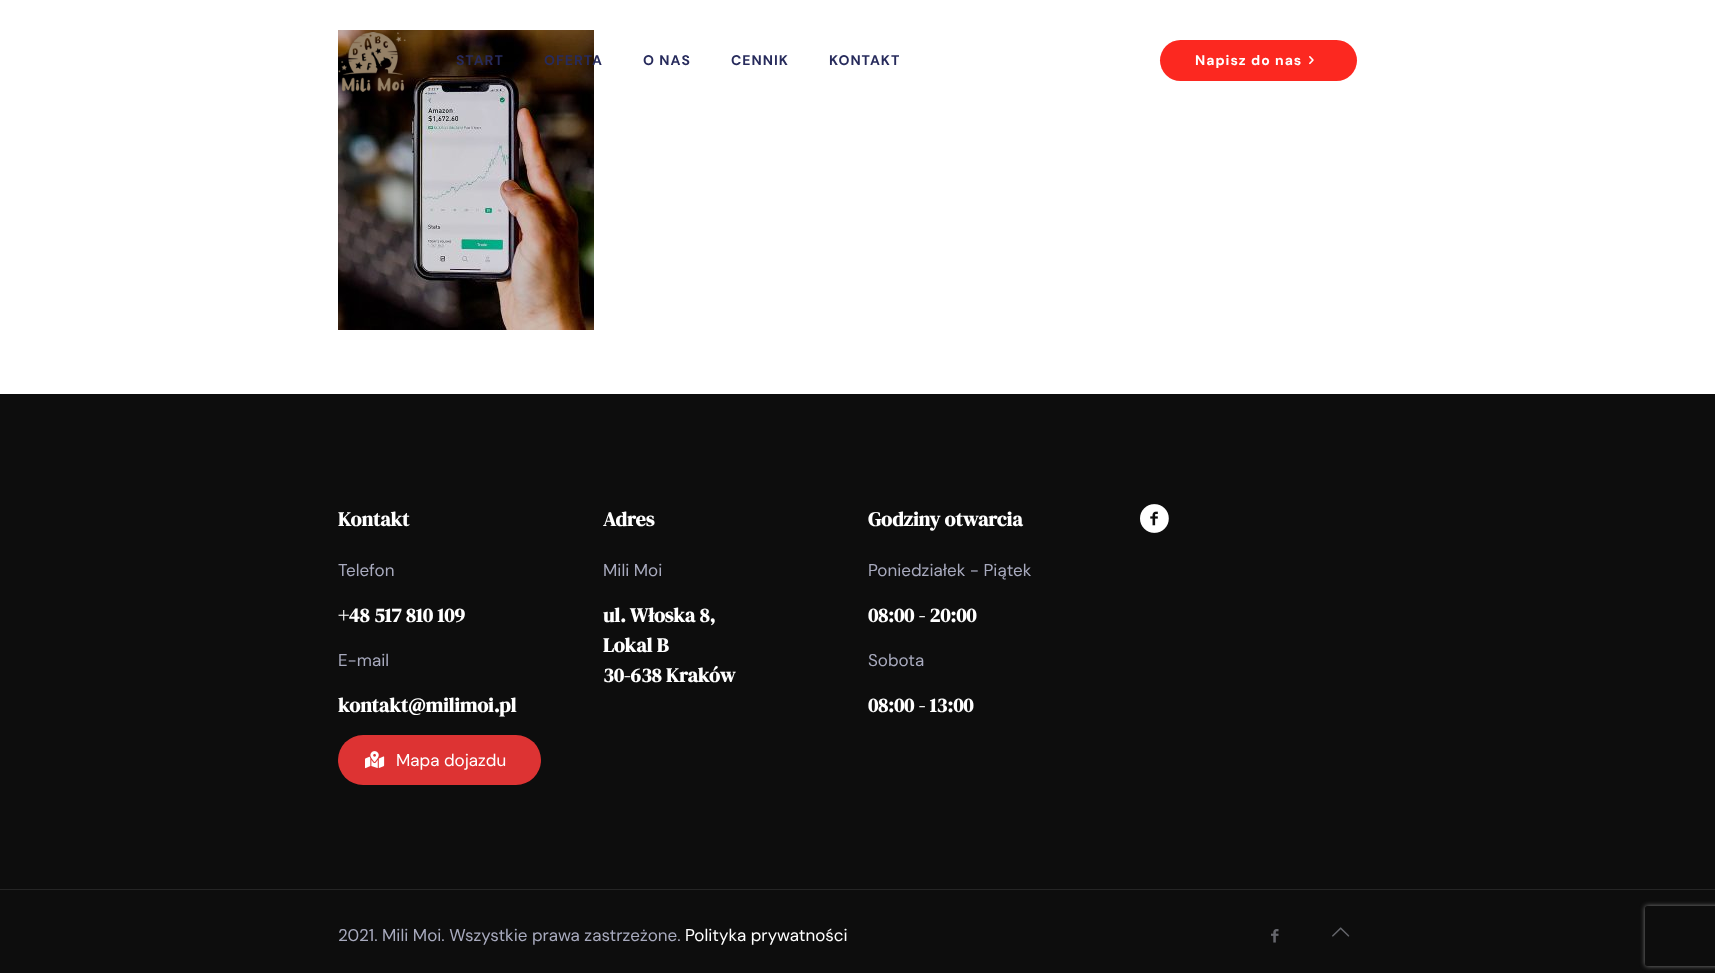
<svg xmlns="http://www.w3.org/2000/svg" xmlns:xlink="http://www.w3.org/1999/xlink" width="1715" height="980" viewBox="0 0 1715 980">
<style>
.cls-1{font:bold 14px DM Sans;letter-spacing:1px;fill:#272b5c}
.cls-2{font:bold 14px DM Sans;letter-spacing:1px;fill:#ffffff}
.cls-3{font:bold 20px DM Serif Display;fill:#ffffff}
.cls-4{font:17px DM Sans;fill:#a8aabe}
.cls-5{font:17px DM Sans;fill:#ffffff}
</style>
<defs>
<clipPath id="clip1"><path d="M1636 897H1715V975H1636ZM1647 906H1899C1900 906 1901 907 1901 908V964C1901 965 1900 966 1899 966H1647C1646 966 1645 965 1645 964V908C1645 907 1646 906 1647 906Z" clip-rule="evenodd"/></clipPath>
</defs>
<rect width="100%" height="100%" fill="#ffffff"/>
<image xlink:href="image0.png" x="338" y="30" width="256" height="300"/>
<image xlink:href="image1.png" x="338" y="32" width="68" height="60"/>
<rect fill="#fc2820" x="1160" y="40" width="197" height="41" rx="20.5"/>
<image xlink:href="image2.png" x="1309" y="56" width="5" height="9"/>
<rect fill="#0d0d0d" x="0" y="394" width="1715" height="579"/>
<rect fill="#dd3333" x="338" y="735" width="203" height="50" rx="25"/>
<image xlink:href="image3.png" x="365" y="751" width="20" height="18"/>
<image xlink:href="image4.png" x="1140" y="504" width="29" height="29"/>
<rect fill="#252525" x="0" y="889" width="1715" height="1"/>
<image xlink:href="image5.png" x="1271" y="929" width="8" height="14"/>
<image xlink:href="image6.png" x="1332" y="927" width="18" height="10"/>
<g clip-path="url(#clip1)">
<rect fill="#808080" filter="blur(2.5px)" x="1645" y="906" width="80" height="60" rx="2"/>
</g>
<text class="cls-1" x="456" y="65">START</text>
<text class="cls-1" x="544" y="65">OFERTA</text>
<text class="cls-1" x="643" y="65">O NAS</text>
<text class="cls-1" x="731" y="65">CENNIK</text>
<text class="cls-1" x="829" y="65">KONTAKT</text>
<text class="cls-2" x="1195" y="65">Napisz do nas</text>
<text class="cls-3" x="338" y="526">Kontakt</text>
<text class="cls-4" x="338" y="576">Telefon</text>
<text class="cls-3" x="338" y="622">+48 517 810 109</text>
<text class="cls-4" x="338" y="666">E-mail</text>
<text class="cls-3" x="338" y="712">kontakt@milimoi.pl</text>
<text class="cls-5" x="396" y="766">Mapa dojazdu</text>
<text class="cls-3" x="603" y="526">Adres</text>
<text class="cls-4" x="603" y="576">Mili Moi</text>
<text class="cls-3"><tspan x="603" y="622">ul. Włoska 8,</tspan><tspan x="603" y="652">Lokal B</tspan><tspan x="603" y="682">30-638 Kraków</tspan></text>
<text class="cls-3" x="868" y="526">Godziny otwarcia</text>
<text class="cls-4" x="868" y="576">Poniedziałek - Piątek</text>
<text class="cls-3" x="868" y="622">08:00 - 20:00</text>
<text class="cls-4" x="868" y="666">Sobota</text>
<text class="cls-3" x="868" y="712">08:00 - 13:00</text>
<text class="cls-4" x="338" y="941">2021. Mili Moi. Wszystkie prawa zastrzeżone.</text>
<text class="cls-5" x="685" y="941">Polityka prywatności</text>
</svg>
